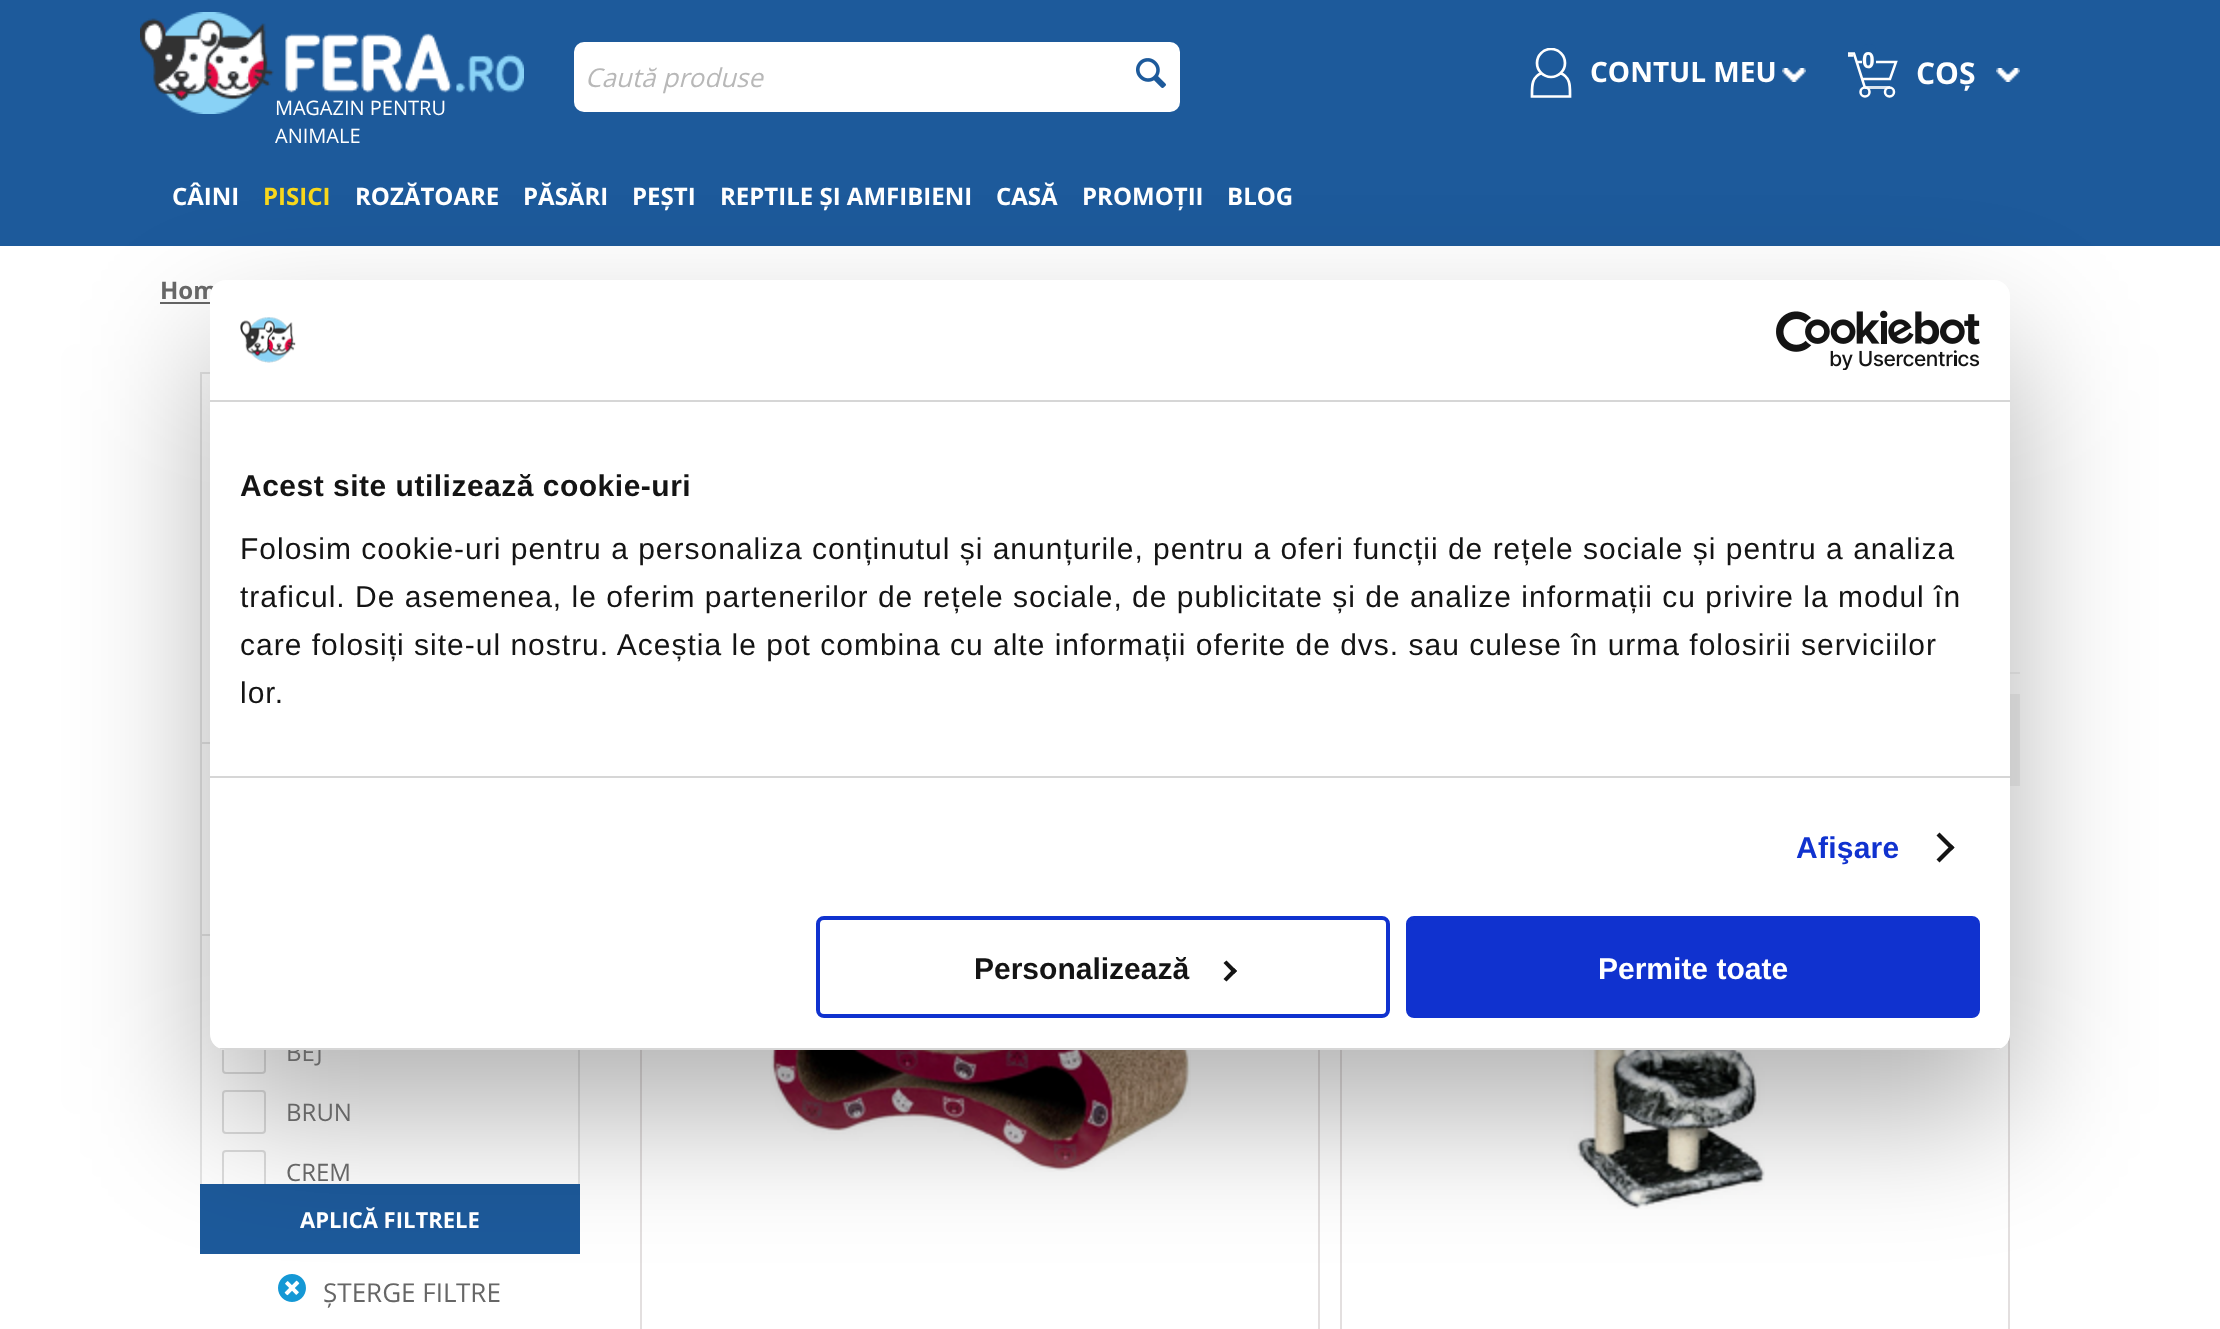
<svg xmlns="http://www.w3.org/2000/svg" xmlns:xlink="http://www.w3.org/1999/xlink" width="2220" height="1329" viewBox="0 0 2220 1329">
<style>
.cls-1{font:italic 26px Open Sans;fill:#b8b8b8}
.cls-2{font:bold 28px Open Sans;fill:#ffffff}
.cls-3{font:bold 22px Open Sans;fill:#ffffff}
.cls-4{font:bold 30px Open Sans;fill:#ffffff}
.cls-5{font:20px Open Sans;fill:#ffffff}
.cls-6{font:bold 24px Open Sans;fill:#ffffff}
.cls-7{font:bold 24px Open Sans;fill:#f8d71c}
.cls-8{font:bold 24px Open Sans;fill:#666666}
.cls-9{font:24px Open Sans;fill:#666666}
.cls-10{font:26px Open Sans;fill:#666666}
.cls-11{font:bold 30px Liberation Sans;letter-spacing:0.5px;fill:#141414}
.cls-12{font:30px Liberation Sans;letter-spacing:1px;fill:#141414}
.cls-13{font:bold 30px Liberation Sans;letter-spacing:0.25px;fill:#1032cf}
.cls-14{font:bold 30px Liberation Sans;fill:#141414}
.cls-15{font:bold 30px Liberation Sans;fill:#ffffff}
</style>
<defs>
<clipPath id="clip1"><rect x="1526" y="48" width="50" height="50"/></clipPath>
<clipPath id="clip2"><rect x="210" y="280" width="1800" height="770" rx="16"/></clipPath>
</defs>
<rect width="100%" height="100%" fill="#ffffff"/>
<rect fill="#1d5a9b" x="0" y="0" width="2220" height="246"/>
<rect fill="#ffffff" x="574" y="42" width="606" height="70" rx="10"/>
<image xlink:href="image0.png" x="1136" y="58" width="30" height="30"/>
<path fill="none" stroke="#ffffff" stroke-width="2.7" d="M1560 73C1571 77 1570 87 1570 96.5H1532C1532 87 1531 77 1542 73"/>
<g clip-path="url(#clip1)">
<circle fill="none" stroke="#ffffff" stroke-width="2.7" cx="1551" cy="63" r="14"/>
</g>
<image xlink:href="image1.png" x="1782" y="68" width="24" height="14"/>
<path fill="none" stroke="#ffffff" stroke-width="2.5" d="M1848 53.5H1854L1865 88M1856.5 62H1896L1890 79H1861"/>
<circle fill="none" stroke="#ffffff" stroke-width="2.5" cx="1865" cy="92" r="4.5"/>
<circle fill="none" stroke="#ffffff" stroke-width="2.5" cx="1889.5" cy="92" r="4.5"/>
<rect fill="#ffffff" fill-opacity="0.83" x="1865" y="86" width="25" height="3"/>
<path fill="none" stroke="#ffffff" stroke-width="2.5" d="M1848 55.5H1853.5"/>
<rect fill="#1d5a9b" fill-opacity="0.99" x="1862" y="44" width="14" height="30" rx="6"/>
<image xlink:href="image1.png" x="1996" y="68" width="24" height="14"/>
<image xlink:href="image2.png" x="140" y="12" width="384" height="102"/>
<rect fill="#666666" x="160" y="302" width="50" height="2"/>
<rect fill="#e6e6e6" x="200" y="372" width="10" height="2"/>
<rect fill="#e6e6e6" x="200" y="372" width="2" height="370"/>
<rect fill="#e6e6e6" x="200" y="742" width="10" height="2"/>
<rect fill="#e6e6e6" x="200" y="742" width="2" height="192"/>
<rect fill="#e6e6e6" x="200" y="934" width="10" height="2"/>
<rect fill="#e6e6e6" x="578" y="1050" width="2" height="134"/>
<rect fill="#e6e6e6" x="200" y="934" width="2" height="250"/>
<rect fill="none" stroke="#dddddd" stroke-width="2" x="223" y="1031" width="42" height="42" rx="3"/>
<rect fill="none" stroke="#dddddd" stroke-width="2" x="223" y="1091" width="42" height="42" rx="3"/>
<rect fill="none" stroke="#dddddd" stroke-width="2" x="223" y="1151" width="42" height="42" rx="3"/>
<rect fill="#1d5a9b" x="200" y="1184" width="380" height="70"/>
<image xlink:href="image3.png" x="278" y="1274" width="28" height="28"/>
<rect fill="#f2f2f2" x="2010" y="672" width="10" height="2"/>
<rect fill="#f2f2f2" x="2010" y="694" width="10" height="92"/>
<rect fill="none" stroke="#e3dfdf" stroke-width="2" x="641" y="797" width="678" height="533"/>
<image xlink:href="image4.png" x="770" y="1050" width="421" height="122"/>
<rect fill="none" stroke="#e3dfdf" stroke-width="2" x="1341" y="797" width="668" height="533"/>
<image xlink:href="image5.png" x="1556" y="1050" width="209" height="159"/>
<rect fill="#000000" fill-opacity="0.3" filter="blur(68px)" x="210" y="344" width="1800" height="770" rx="16"/>
<text class="cls-1" x="585" y="87">Caută produse</text>
<text class="cls-2" x="1590" y="82">CONTUL MEU</text>
<text class="cls-3" x="1862" y="68">0</text>
<text class="cls-4" x="1916" y="84">COȘ</text>
<text class="cls-5"><tspan x="275" y="115">MAGAZIN PENTRU</tspan><tspan x="275" y="143">ANIMALE</tspan></text>
<text class="cls-6" x="172" y="205">CÂINI</text>
<text class="cls-7" x="263" y="205">PISICI</text>
<text class="cls-6" x="355" y="205">ROZĂTOARE</text>
<text class="cls-6" x="523" y="205">PĂSĂRI</text>
<text class="cls-6" x="632" y="205">PEȘTI</text>
<text class="cls-6" x="720" y="205">REPTILE ȘI AMFIBIENI</text>
<text class="cls-6" x="996" y="205">CASĂ</text>
<text class="cls-6" x="1082" y="205">PROMOȚII</text>
<text class="cls-6" x="1227" y="205">BLOG</text>
<text class="cls-8" x="160" y="299">Hom</text>
<text class="cls-9" x="286" y="1061">BEJ</text>
<text class="cls-9" x="286" y="1121">BRUN</text>
<text class="cls-9" x="286" y="1181">CREM</text>
<text class="cls-3" x="300" y="1228">APLICĂ FILTRELE</text>
<text class="cls-10" x="323" y="1302">ȘTERGE FILTRE</text>
<rect fill="#ffffff" x="210" y="280" width="1800" height="770" rx="16"/>
<rect fill="#d6d6d6" x="210" y="400" width="1800" height="2"/>
<image xlink:href="image6.png" x="240" y="317" width="56" height="46"/>
<image xlink:href="image7.png" x="1776" y="310" width="204" height="60"/>
<rect fill="#d6d6d6" x="210" y="776" width="1800" height="2"/>
<text class="cls-11" x="240" y="496">Acest site utilizează cookie-uri</text>
<text class="cls-12"><tspan x="240" y="559">Folosim cookie-uri pentru a personaliza conținutul și anunțurile, pentru a oferi funcții de rețele sociale și pentru a analiza</tspan><tspan x="240" y="607">traficul. De asemenea, le oferim partenerilor de rețele sociale, de publicitate și de analize informații cu privire la modul în</tspan><tspan x="240" y="655">care folosiți site-ul nostru. Aceștia le pot combina cu alte informații oferite de dvs. sau culese în urma folosirii serviciilor</tspan><tspan x="240" y="703">lor.</tspan></text>
<text class="cls-13" x="1796" y="858">Afişare</text>
<path fill="#141414" d="M1939.5 832.5L1954.5 847.5L1951.5 850.5L1936.5 835.5Z"/>
<path fill="#141414" d="M1951.5 844.5L1954.5 847.5L1939.5 862.5L1936.5 859.5Z"/>
<g clip-path="url(#clip2)">
<rect fill="#d6d6d6" x="210" y="1048" width="1800" height="2"/>
</g>
<rect fill="none" stroke="#1032cf" stroke-width="4" x="818" y="918" width="570" height="98" rx="6"/>
<text class="cls-14" x="974" y="979">Personalizează</text>
<path fill="#141414" d="M1226.5 960.5L1237 971L1234 974L1223.5 963Z"/>
<path fill="#141414" d="M1234 968L1237 971L1226.5 981.5L1223.5 979Z"/>
<rect fill="#1032cf" stroke="#1032cf" stroke-width="4" x="1408" y="918" width="570" height="98" rx="6"/>
<text class="cls-15" x="1598" y="979">Permite toate</text>
</svg>
